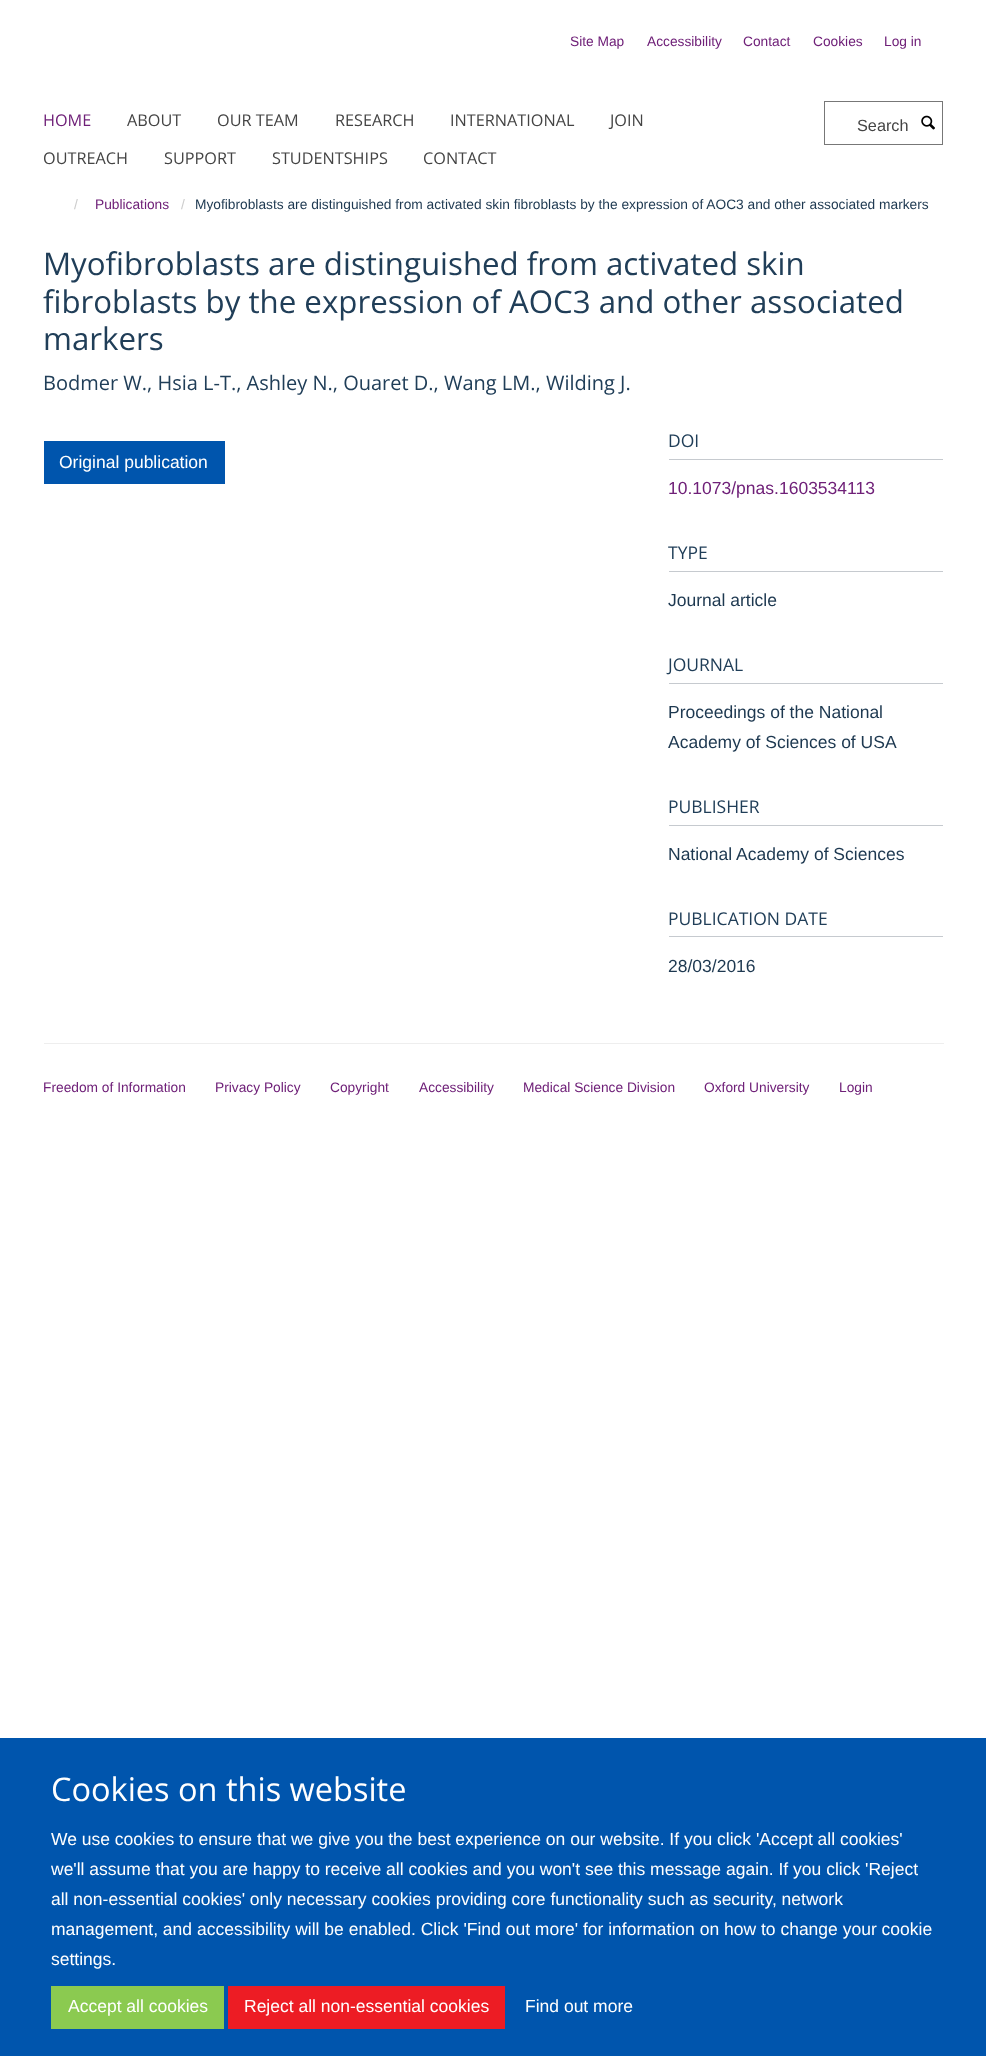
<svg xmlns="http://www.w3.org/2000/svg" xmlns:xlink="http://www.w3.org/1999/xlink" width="986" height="2056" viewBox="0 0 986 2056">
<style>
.cls-1{font:13.75px Liberation Sans;fill:#6f2078}
.cls-2{font:16.25px Open Sans;fill:#6f2078}
.cls-3{font:16.25px Open Sans;fill:#444444}
.cls-4{font:16.25px Liberation Sans;fill:#444444}
.cls-5{font:13.75px Liberation Sans;fill:#cccccc}
.cls-6{font:13.75px Liberation Sans;fill:#1d3850}
.cls-7{font:31.25px Open Sans;fill:#203e58}
.cls-8{font:20px Open Sans;fill:#203e58}
.cls-9{font:17.5px Liberation Sans;fill:#ffffff}
.cls-10{font:17.5px Open Sans;fill:#203e58}
.cls-11{font:17.5px Liberation Sans;fill:#6f2078}
.cls-12{font:17.5px Liberation Sans;fill:#1d3850}
.cls-13{font:32.5px Open Sans;fill:#ffffff}
</style>
<rect width="100%" height="100%" fill="#ffffff"/>
<rect fill="none" stroke="#777777" x="824.5" y="101.5" width="118" height="43"/>
<image xlink:href="image0.png" x="921" y="115" width="14" height="15"/>
<rect fill="#0055ad" x="44" y="441" width="181" height="43"/>
<rect fill="#c6cacf" x="669" y="459" width="274" height="1"/>
<rect fill="#c6cacf" x="669" y="571" width="274" height="1"/>
<rect fill="#c6cacf" x="669" y="683" width="274" height="1"/>
<rect fill="#c6cacf" x="669" y="825" width="274" height="1"/>
<rect fill="#c6cacf" x="669" y="936" width="274" height="1"/>
<rect fill="#eeeeee" x="44" y="1043" width="900" height="1"/>
<rect fill="#0055ad" x="0" y="1738" width="986" height="318"/>
<rect fill="#8bca50" x="51" y="1986" width="173" height="43"/>
<rect fill="#ed1c24" x="228" y="1986" width="277" height="43"/>
<text class="cls-1" x="570" y="46">Site Map</text>
<text class="cls-1" x="647" y="46">Accessibility</text>
<text class="cls-1" x="743" y="46">Contact</text>
<text class="cls-1" x="813" y="46">Cookies</text>
<text class="cls-1" x="884" y="46">Log in</text>
<text class="cls-2" x="43" y="126">HOME</text>
<text class="cls-3" x="127" y="126">ABOUT</text>
<text class="cls-3" x="217" y="126">OUR TEAM</text>
<text class="cls-3" x="335" y="126">RESEARCH</text>
<text class="cls-3" x="450" y="126">INTERNATIONAL</text>
<text class="cls-3" x="610" y="126">JOIN</text>
<text class="cls-3" x="43" y="164">OUTREACH</text>
<text class="cls-3" x="164" y="164">SUPPORT</text>
<text class="cls-3" x="272" y="164">STUDENTSHIPS</text>
<text class="cls-3" x="423" y="164">CONTACT</text>
<text class="cls-4" x="857" y="131">Search</text>
<text class="cls-5" x="74" y="209">/</text>
<text class="cls-1" x="95" y="209">Publications</text>
<text class="cls-5" x="181" y="209">/</text>
<text class="cls-6" x="195" y="209">Myofibroblasts are distinguished from activated skin fibroblasts by the expression of AOC3 and other associated markers</text>
<text class="cls-7"><tspan x="43" y="275">Myofibroblasts are distinguished from activated skin</tspan><tspan x="43" y="313">fibroblasts by the expression of AOC3 and other associated</tspan><tspan x="43" y="350">markers</tspan></text>
<text class="cls-8" x="43" y="390">Bodmer W., Hsia L-T., Ashley N., Ouaret D., Wang LM., Wilding J.</text>
<text class="cls-9" x="59" y="468">Original publication</text>
<text class="cls-10" x="668" y="447">DOI</text>
<text class="cls-11" x="668" y="494">10.1073/pnas.1603534113</text>
<text class="cls-10" x="668" y="559">TYPE</text>
<text class="cls-12" x="668" y="606">Journal article</text>
<text class="cls-10" x="668" y="671">JOURNAL</text>
<text class="cls-12"><tspan x="668" y="718">Proceedings of the National</tspan><tspan x="668" y="748">Academy of Sciences of USA</tspan></text>
<text class="cls-10" x="668" y="813">PUBLISHER</text>
<text class="cls-12" x="668" y="860">National Academy of Sciences</text>
<text class="cls-10" x="668" y="925">PUBLICATION DATE</text>
<text class="cls-12" x="668" y="972">28/03/2016</text>
<text class="cls-1" x="43" y="1092">Freedom of Information</text>
<text class="cls-1" x="215" y="1092">Privacy Policy</text>
<text class="cls-1" x="330" y="1092">Copyright</text>
<text class="cls-1" x="419" y="1092">Accessibility</text>
<text class="cls-1" x="523" y="1092">Medical Science Division</text>
<text class="cls-1" x="704" y="1092">Oxford University</text>
<text class="cls-1" x="839" y="1092">Login</text>
<text class="cls-13" x="51" y="1801">Cookies on this website</text>
<text class="cls-9"><tspan x="51" y="1845">We use cookies to ensure that we give you the best experience on our website. If you click 'Accept all cookies'</tspan><tspan x="51" y="1875">we'll assume that you are happy to receive all cookies and you won't see this message again. If you click 'Reject</tspan><tspan x="51" y="1905">all non-essential cookies' only necessary cookies providing core functionality such as security, network</tspan><tspan x="51" y="1935">management, and accessibility will be enabled. Click 'Find out more' for information on how to change your cookie</tspan><tspan x="51" y="1965">settings.</tspan></text>
<text class="cls-9" x="68" y="2012">Accept all cookies</text>
<text class="cls-9" x="244" y="2012">Reject all non-essential cookies</text>
<text class="cls-9" x="525" y="2012">Find out more</text>
</svg>
